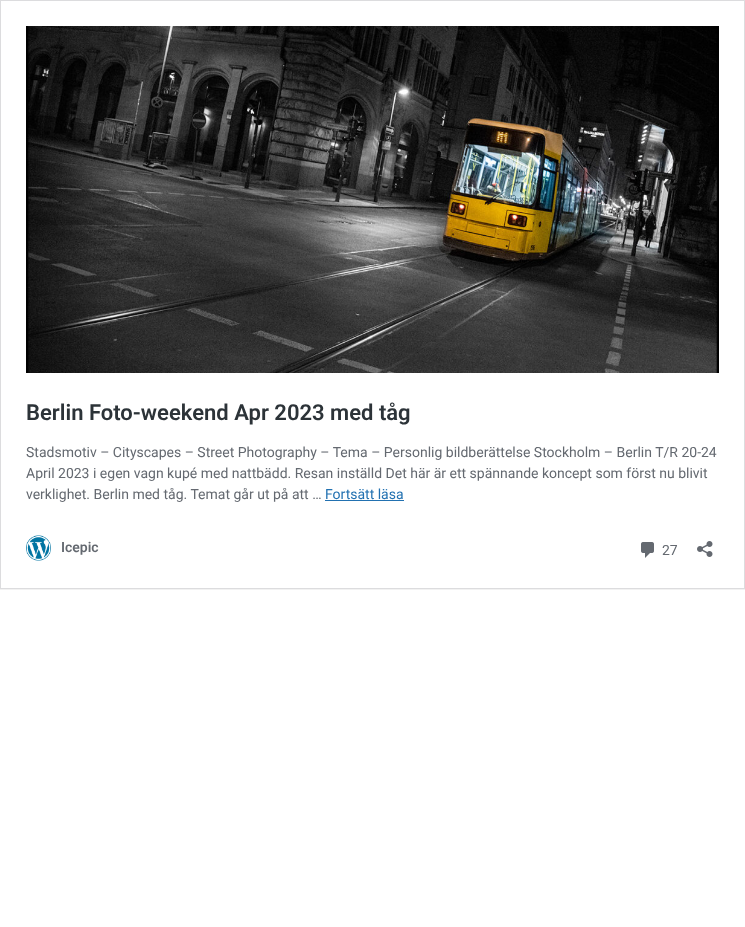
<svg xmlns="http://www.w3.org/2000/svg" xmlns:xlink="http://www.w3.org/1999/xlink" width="745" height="927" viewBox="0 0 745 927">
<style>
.cls-1{font:600 22px Roboto;fill:#2c3338}
.cls-2{font:14px Roboto;fill:#646970}
.cls-3{font:14px Roboto;fill:#2271b1}
.cls-4{font:600 14px Roboto;fill:#646970}
</style>
<defs>
<clipPath id="clip1"><rect x="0" y="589" width="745" height="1"/></clipPath>
</defs>
<rect width="100%" height="100%" fill="#ffffff"/>
<g clip-path="url(#clip1)">
<rect fill="#000000" fill-opacity="0.05" filter="blur(0.5px)" x="0" y="1" width="745" height="589"/>
</g>
<rect fill="none" stroke="#dcdcde" x="0.5" y="0.5" width="744" height="588"/>
<image xlink:href="image0.png" x="26" y="26" width="693" height="347"/>
<rect fill="#2271b1" x="325" y="500" width="79" height="1"/>
<image xlink:href="image1.png" x="26" y="535" width="25" height="26"/>
<image xlink:href="image2.png" x="641" y="542" width="13" height="16"/>
<image xlink:href="image3.png" x="697" y="541" width="16" height="16"/>
<text class="cls-1" x="26" y="420">Berlin Foto-weekend Apr 2023 med tåg</text>
<text class="cls-2"><tspan x="26" y="457">Stadsmotiv – Cityscapes – Street Photography – Tema – Personlig bildberättelse Stockholm – Berlin T/R 20-24</tspan><tspan x="26" y="478">April 2023 i egen vagn kupé med nattbädd. Resan inställd Det här är ett spännande koncept som först nu blivit</tspan><tspan x="26" y="499">verklighet. Berlin med tåg. Temat går ut på att …</tspan></text>
<text class="cls-3" x="325" y="499">Fortsätt läsa</text>
<text class="cls-4" x="61" y="552">Icepic</text>
<text class="cls-2" x="662" y="555">27</text>
</svg>
